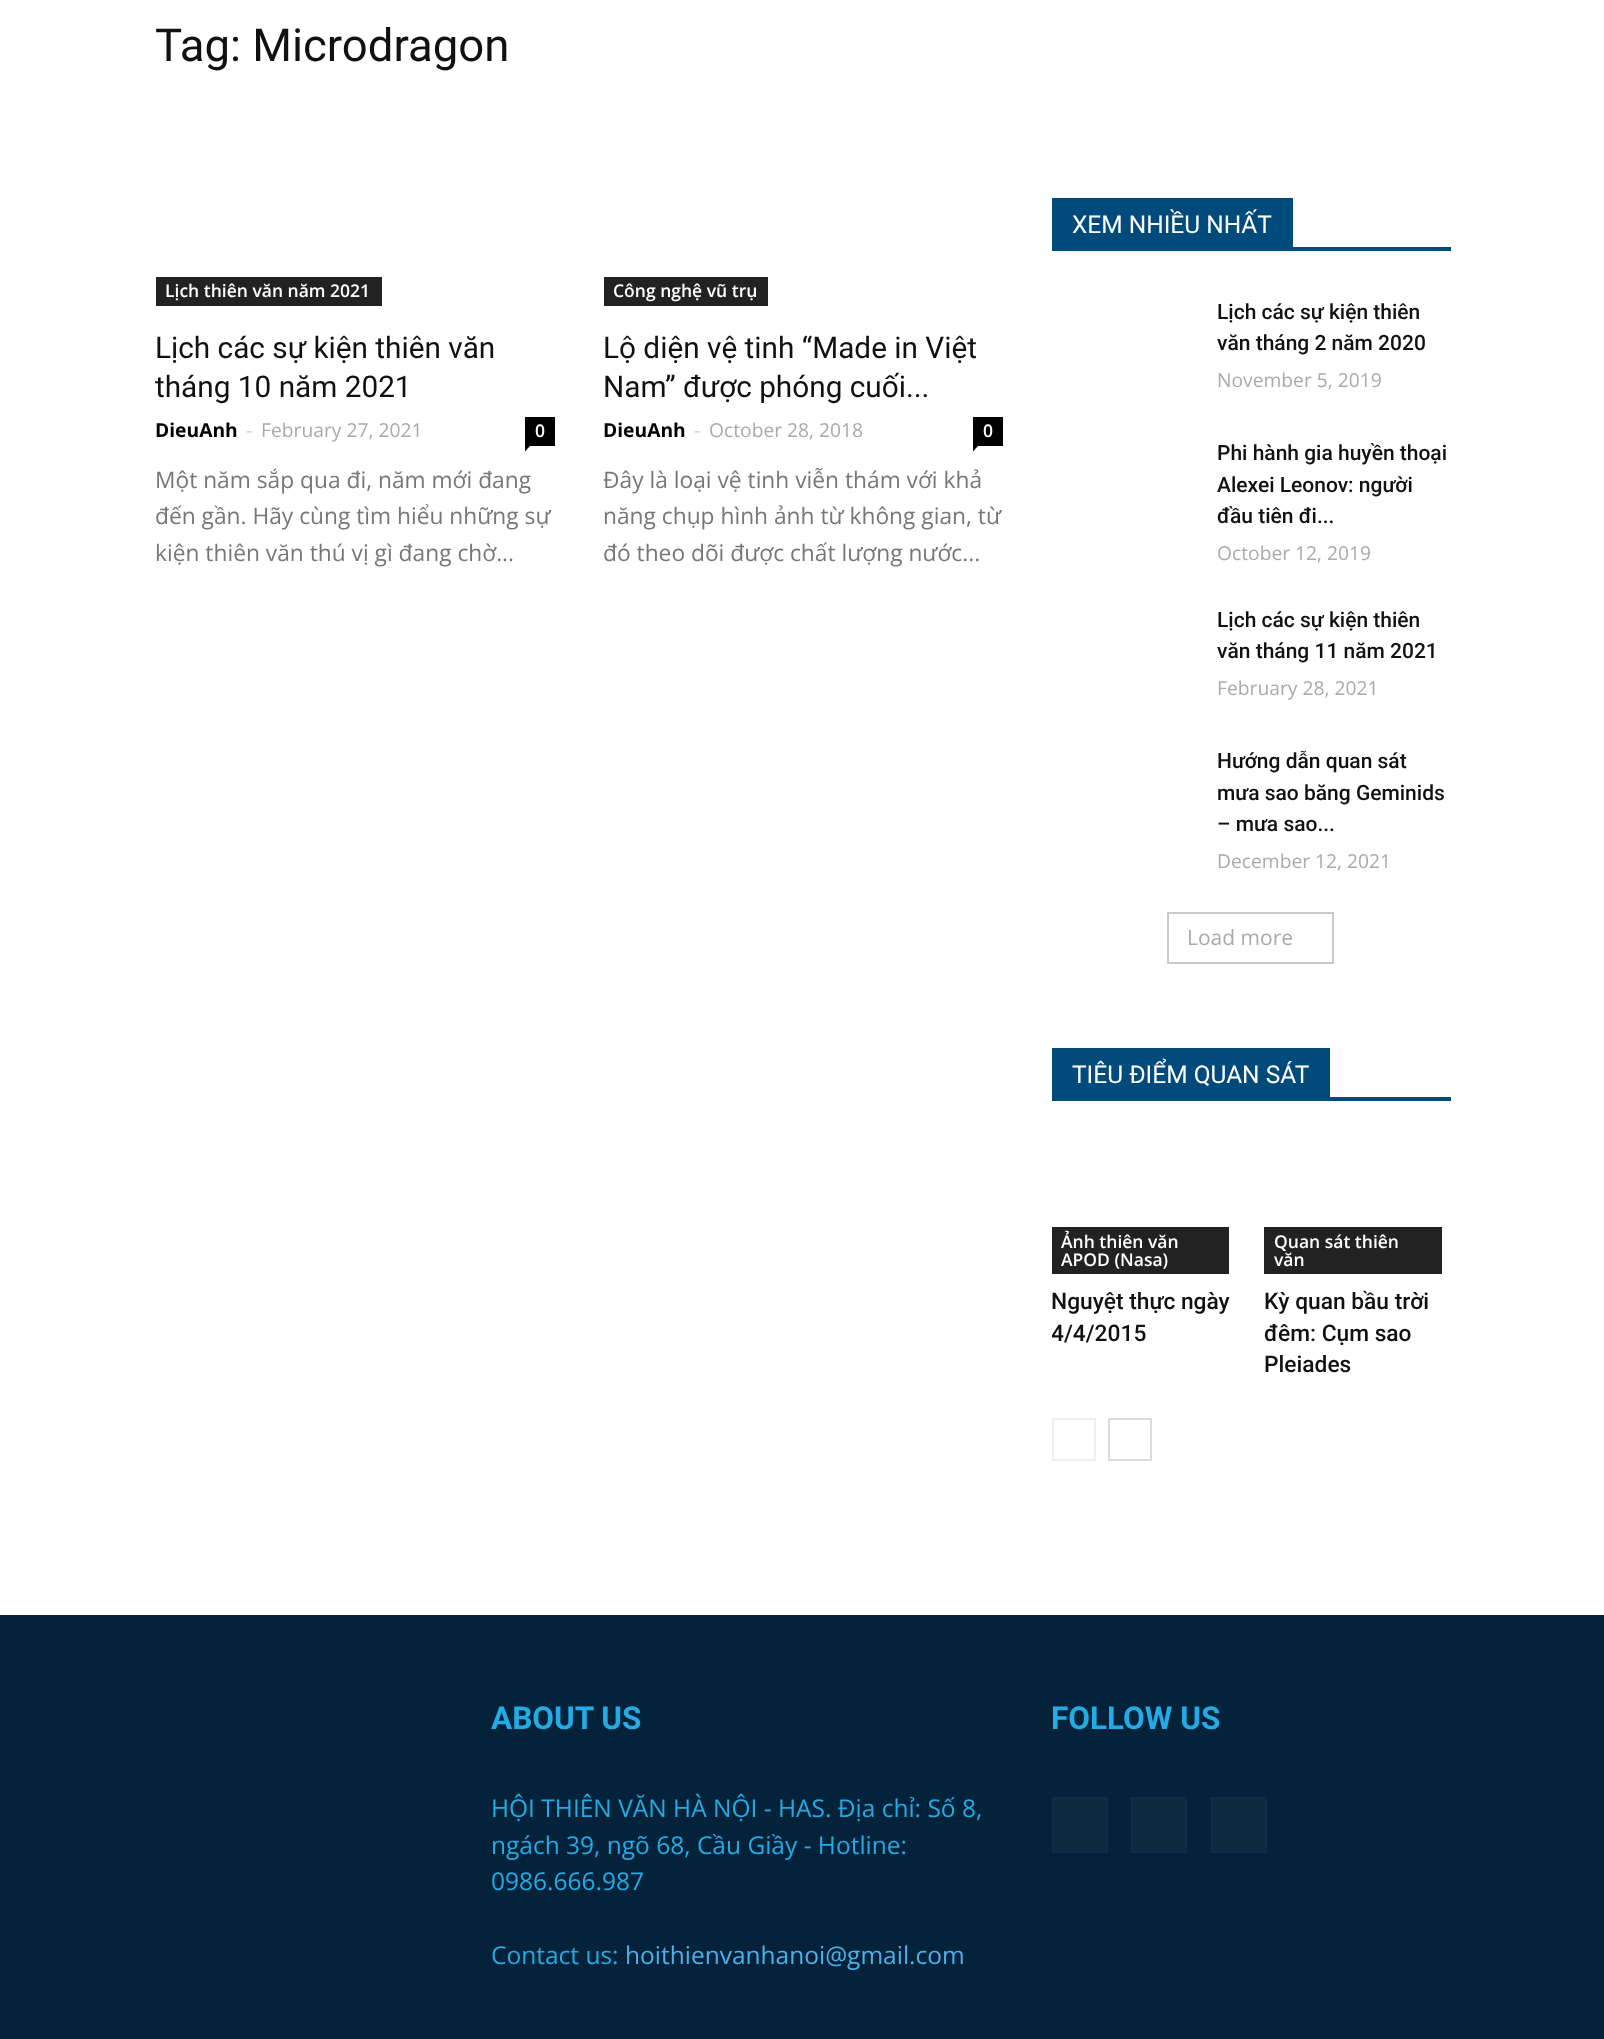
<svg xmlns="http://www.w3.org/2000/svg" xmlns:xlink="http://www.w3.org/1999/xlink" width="1604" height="2039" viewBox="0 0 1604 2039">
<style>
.cls-1{font:45.5px Roboto;fill:#111111}
.cls-2{font:600 17.5px Open Sans;fill:#ffffff}
.cls-3{font:29.75px Roboto;fill:#111111}
.cls-4{font:bold 19.25px Open Sans;fill:#000000}
.cls-5{font:19.25px Open Sans;fill:#cccccc}
.cls-6{font:19.25px Open Sans;fill:#aaaaaa}
.cls-7{font:22.75px Open Sans;fill:#777777}
.cls-8{font:24.5px Roboto;fill:#ffffff}
.cls-9{font:500 21px Roboto;fill:#111111}
.cls-10{font:21px Open Sans;fill:#aaaaaa}
.cls-11{font:500 22.75px Roboto;fill:#111111}
.cls-12{font:bold 31.5px Roboto;fill:#24abe5}
.cls-13{font:24.5px Open Sans;fill:#24abe5}
.cls-14{font:24.5px Open Sans;fill:#4db2ec}
</style>
<defs>
<clipPath id="clip1"><rect x="1052" y="1048" width="399" height="413"/></clipPath>
</defs>
<rect width="100%" height="100%" fill="#ffffff"/>
<rect fill="#222222" x="156" y="277" width="226" height="29"/>
<rect fill="#000000" x="525" y="417" width="30" height="29"/>
<path fill="#000000" d="M525 446H530L525 451.5Z"/>
<rect fill="#222222" x="604" y="277" width="164" height="29"/>
<rect fill="#000000" x="973" y="417" width="30" height="29"/>
<path fill="#000000" d="M973 446H978L973 451.5Z"/>
<rect fill="#014b7c" x="1052" y="247" width="399" height="4"/>
<rect fill="#014b7c" x="1052" y="198" width="241" height="49"/>
<rect fill="none" stroke="#c9c9c9" stroke-width="2" x="1168" y="913" width="165" height="50"/>
<rect fill="#014b7c" x="1052" y="1097" width="399" height="4"/>
<rect fill="#014b7c" x="1052" y="1048" width="278" height="49"/>
<rect fill="#222222" x="1052" y="1227" width="177" height="47"/>
<rect fill="#222222" x="1264" y="1227" width="178" height="47"/>
<rect fill="none" stroke="#eeeeee" stroke-width="2" x="1053" y="1419" width="42" height="41"/>
<rect fill="none" stroke="#dcdcdc" stroke-width="2" x="1109" y="1419" width="42" height="41"/>
<rect fill="#04233a" x="0" y="1615" width="1604" height="424"/>
<rect fill="#0c2a40" stroke="#0d2e45" stroke-width="2" x="1053" y="1798" width="54" height="54"/>
<rect fill="#0c2a40" stroke="#0d2e45" stroke-width="2" x="1132" y="1798" width="54" height="54"/>
<rect fill="#0c2a40" stroke="#0d2e45" stroke-width="2" x="1212" y="1798" width="54" height="54"/>
<text class="cls-1" x="155" y="61">Tag: Microdragon</text>
<text class="cls-2" x="165" y="297">Lịch thiên văn năm 2021</text>
<text class="cls-3"><tspan x="155" y="358">Lịch các sự kiện thiên văn</tspan><tspan x="155" y="397">tháng 10 năm 2021</tspan></text>
<text class="cls-4" x="155" y="437">DieuAnh</text>
<text class="cls-5" x="246" y="437">-</text>
<text class="cls-6" x="261" y="437">February 27, 2021</text>
<text class="cls-2" x="535" y="437">0</text>
<text class="cls-7"><tspan x="155" y="488">Một năm sắp qua đi, năm mới đang</tspan><tspan x="155" y="524">đến gần. Hãy cùng tìm hiểu những sự</tspan><tspan x="155" y="561">kiện thiên văn thú vị gì đang chờ...</tspan></text>
<text class="cls-2" x="613" y="297">Công nghệ vũ trụ</text>
<text class="cls-3"><tspan x="603" y="358">Lộ diện vệ tinh “Made in Việt</tspan><tspan x="603" y="397">Nam” được phóng cuối...</tspan></text>
<text class="cls-4" x="603" y="437">DieuAnh</text>
<text class="cls-5" x="694" y="437">-</text>
<text class="cls-6" x="709" y="437">October 28, 2018</text>
<text class="cls-2" x="983" y="437">0</text>
<text class="cls-7"><tspan x="603" y="488">Đây là loại vệ tinh viễn thám với khả</tspan><tspan x="603" y="524">năng chụp hình ảnh từ không gian, từ</tspan><tspan x="603" y="561">đó theo dõi được chất lượng nước...</tspan></text>
<text class="cls-8" x="1072" y="233">XEM NHIỀU NHẤT</text>
<text class="cls-9"><tspan x="1217" y="319">Lịch các sự kiện thiên</tspan><tspan x="1217" y="350">văn tháng 2 năm 2020</tspan></text>
<text class="cls-6" x="1217" y="387">November 5, 2019</text>
<text class="cls-9"><tspan x="1217" y="460">Phi hành gia huyền thoại</tspan><tspan x="1217" y="492">Alexei Leonov: người</tspan><tspan x="1217" y="523">đầu tiên đi...</tspan></text>
<text class="cls-6" x="1217" y="560">October 12, 2019</text>
<text class="cls-9"><tspan x="1217" y="627">Lịch các sự kiện thiên</tspan><tspan x="1217" y="658">văn tháng 11 năm 2021</tspan></text>
<text class="cls-6" x="1217" y="695">February 28, 2021</text>
<text class="cls-9"><tspan x="1217" y="768">Hướng dẫn quan sát</tspan><tspan x="1217" y="800">mưa sao băng Geminids</tspan><tspan x="1217" y="831">– mưa sao...</tspan></text>
<text class="cls-6" x="1217" y="868">December 12, 2021</text>
<text class="cls-10" x="1187" y="945">Load more</text>
<text class="cls-8" x="1072" y="1083">TIÊU ĐIỂM QUAN SÁT</text>
<text class="cls-2"><tspan x="1061" y="1248">Ảnh thiên văn</tspan><tspan x="1061" y="1266">APOD (Nasa)</tspan></text>
<text class="cls-11" x="1051" y="1309">Nguyệt thực ngày</text>
<g clip-path="url(#clip1)">
<text class="cls-11" x="1051" y="1341">4/4/2015</text>
</g>
<text class="cls-2"><tspan x="1274" y="1248">Quan sát thiên</tspan><tspan x="1274" y="1266">văn</tspan></text>
<text class="cls-11"><tspan x="1264" y="1309">Kỳ quan bầu trời</tspan><tspan x="1264" y="1341">đêm: Cụm sao</tspan><tspan x="1264" y="1372">Pleiades</tspan></text>
<text class="cls-12" x="491" y="1729">ABOUT US</text>
<text class="cls-13"><tspan x="491" y="1817">HỘI THIÊN VĂN HÀ NỘI - HAS. Địa chỉ: Số 8,</tspan><tspan x="491" y="1854">ngách 39, ngõ 68, Cầu Giầy - Hotline:</tspan><tspan x="491" y="1890">0986.666.987</tspan></text>
<text class="cls-13" x="491" y="1964">Contact us:</text>
<text class="cls-14" x="625" y="1964">hoithienvanhanoi@gmail.com</text>
<text class="cls-12" x="1051" y="1729">FOLLOW US</text>
</svg>
